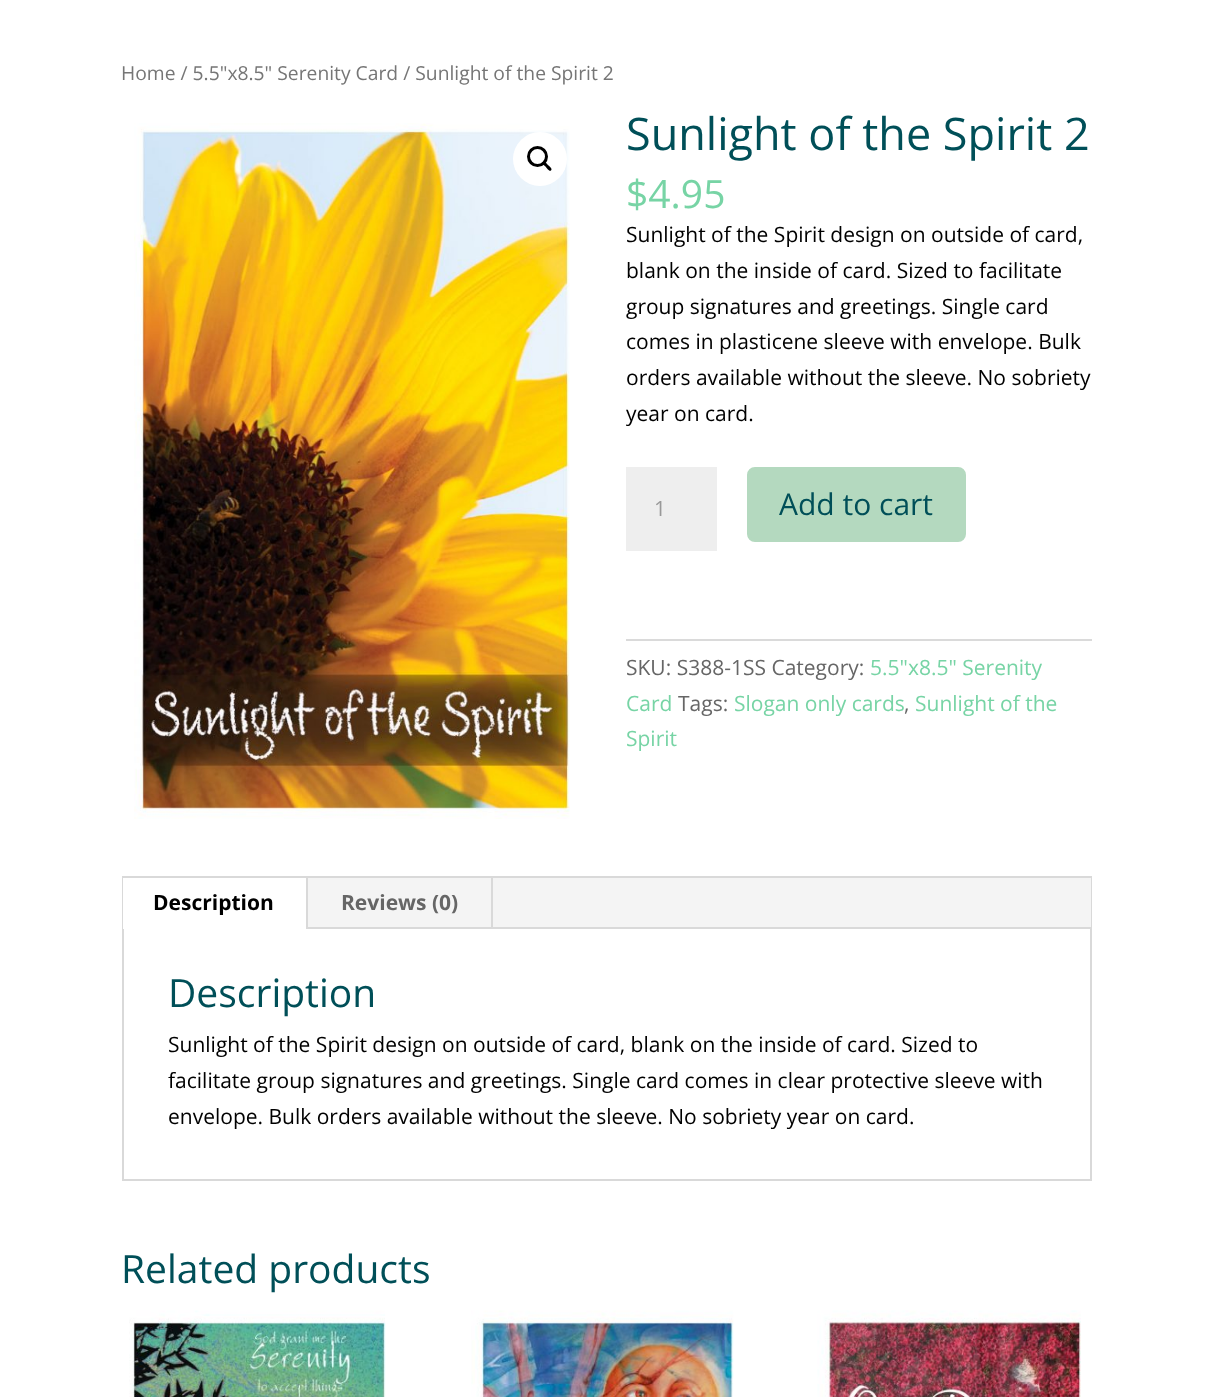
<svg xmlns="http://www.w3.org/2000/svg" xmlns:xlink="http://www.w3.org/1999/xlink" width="1213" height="1397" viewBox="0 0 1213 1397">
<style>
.cls-1{font:19.3px Open Sans;fill:#767676}
.cls-2{font:45px Open Sans;fill:#004f58}
.cls-3{font:39px Open Sans;fill:#77d4a5}
.cls-4{font:21px Open Sans;fill:#000000}
.cls-5{font:21px Open Sans;fill:#999999}
.cls-6{font:30px Open Sans;fill:#004f58}
.cls-7{font:21px Open Sans;fill:#666666}
.cls-8{font:21px Open Sans;fill:#77d4a5}
.cls-9{font:bold 21px Open Sans;fill:#000000}
.cls-10{font:bold 21px Open Sans;fill:#666666}
.cls-11{font:39px Open Sans;fill:#004f58}
</style>
<rect width="100%" height="100%" fill="#ffffff"/>
<image xlink:href="image0.png" x="134" y="123" width="436" height="696"/>
<circle fill="#ffffff" cx="540" cy="159" r="27"/>
<circle fill="none" stroke="#000000" stroke-width="3" cx="537.5" cy="156.5" r="9"/>
<path fill="#000000" d="M542.5 162C544.5 160 547 164 548 165C549 166 553 168.5 551 170.5C549.5 172 546.5 168 546 167C545 166 541 163.5 542.5 162Z"/>
<rect fill="#eeeeee" x="626" y="467" width="91" height="84"/>
<rect fill="#b4d9bf" stroke="#b4d9bf" stroke-width="3" x="748.5" y="468.5" width="216" height="72" rx="6.5"/>
<rect fill="#dadada" x="626" y="639" width="466" height="2"/>
<rect fill="none" stroke="#d9d9d9" stroke-width="2" x="123" y="877" width="968" height="303"/>
<rect fill="#f4f4f4" x="308" y="878" width="783" height="49"/>
<rect fill="#ffffff" x="123" y="878" width="1" height="51"/>
<rect fill="#d9d9d9" x="306" y="878" width="2" height="51"/>
<rect fill="#d9d9d9" x="491" y="878" width="2" height="51"/>
<rect fill="#d9d9d9" x="308" y="927" width="783" height="2"/>
<image xlink:href="image1.png" x="129" y="1310" width="257" height="87"/>
<image xlink:href="image2.png" x="471" y="1310" width="263" height="87"/>
<image xlink:href="image3.png" x="817" y="1310" width="264" height="87"/>
<text class="cls-1" x="121" y="80">Home / 5.5"x8.5" Serenity Card / Sunlight of the Spirit 2</text>
<text class="cls-2" x="626" y="150">Sunlight of the Spirit 2</text>
<text class="cls-3" x="626" y="208">$4.95</text>
<text class="cls-4"><tspan x="626" y="242">Sunlight of the Spirit design on outside of card,</tspan><tspan x="626" y="278">blank on the inside of card. Sized to facilitate</tspan><tspan x="626" y="314">group signatures and greetings. Single card</tspan><tspan x="626" y="349">comes in plasticene sleeve with envelope. Bulk</tspan><tspan x="626" y="385">orders available without the sleeve. No sobriety</tspan><tspan x="626" y="421">year on card.</tspan></text>
<text class="cls-5" x="654" y="516">1</text>
<text class="cls-6" x="779" y="515">Add to cart</text>
<text class="cls-7" x="626" y="675">SKU: S388-1SS Category:</text>
<text class="cls-8" x="870" y="675">5.5"x8.5" Serenity</text>
<text class="cls-8" x="626" y="711">Card</text>
<text class="cls-7" x="678" y="711">Tags:</text>
<text class="cls-8" x="734" y="711">Slogan only cards</text>
<text class="cls-7" x="904" y="711">,</text>
<text class="cls-8" x="915" y="711">Sunlight of the</text>
<text class="cls-8" x="626" y="746">Spirit</text>
<text class="cls-9" x="153" y="910">Description</text>
<text class="cls-10" x="341" y="910">Reviews (0)</text>
<text class="cls-11" x="168" y="1007">Description</text>
<text class="cls-4"><tspan x="168" y="1052">Sunlight of the Spirit design on outside of card, blank on the inside of card. Sized to</tspan><tspan x="168" y="1088">facilitate group signatures and greetings. Single card comes in clear protective sleeve with</tspan><tspan x="168" y="1124">envelope. Bulk orders available without the sleeve. No sobriety year on card.</tspan></text>
<text class="cls-11" x="121" y="1283">Related products</text>
</svg>
